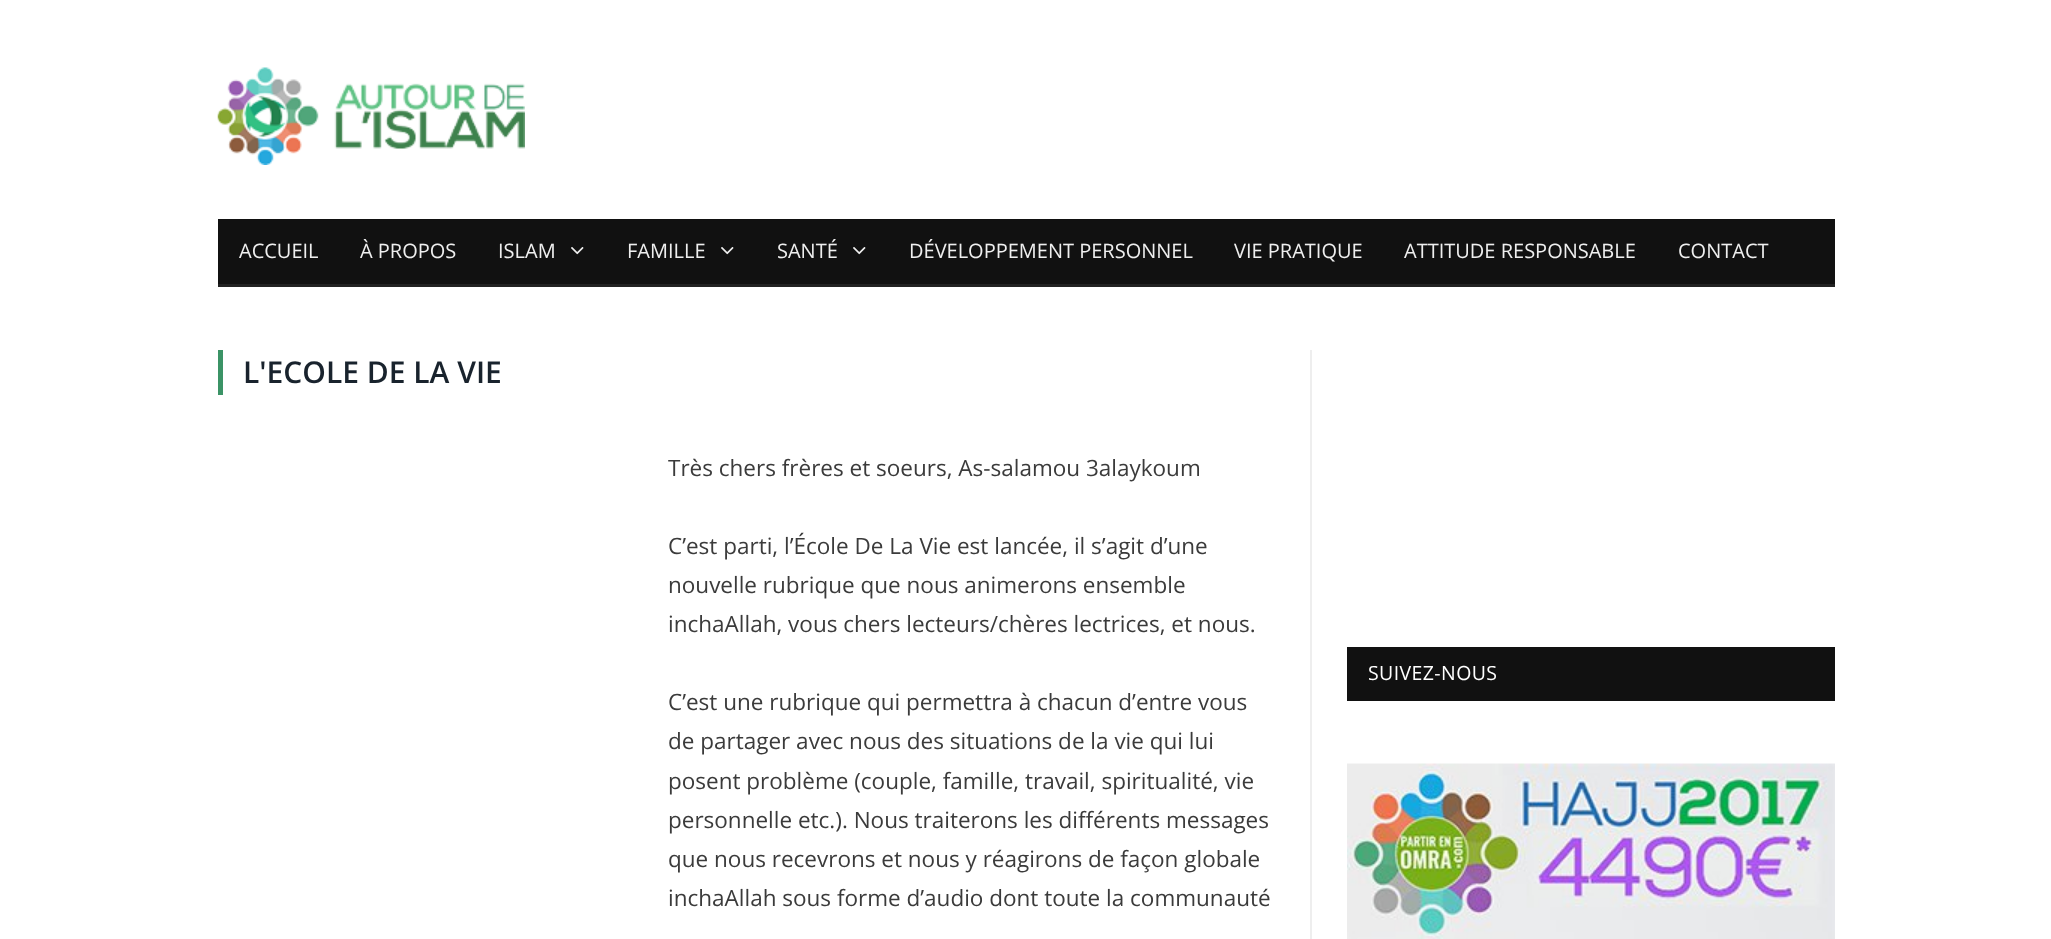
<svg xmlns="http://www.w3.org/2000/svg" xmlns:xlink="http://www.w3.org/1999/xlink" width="2051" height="939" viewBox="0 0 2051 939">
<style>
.cls-1{font:20px Open Sans;fill:#efefef}
.cls-2{font:600 30px Open Sans;fill:#19232d}
.cls-3{font:22.5px Open Sans;fill:#3b3b3b}
.cls-4{font:19.5px Open Sans;letter-spacing:0.4px;fill:#ffffff}
</style>
<rect width="100%" height="100%" fill="#ffffff"/>
<image xlink:href="image0.png" x="217" y="67" width="308" height="98"/>
<rect fill="#111111" x="218" y="219" width="1617" height="65"/>
<rect fill="#222222" x="218" y="284" width="1617" height="3"/>
<image xlink:href="image1.png" x="571" y="247" width="13" height="8"/>
<image xlink:href="image1.png" x="721" y="247" width="13" height="8"/>
<image xlink:href="image1.png" x="853" y="247" width="13" height="8"/>
<rect fill="#3b9366" x="218" y="350" width="5" height="45"/>
<rect fill="#eeeeee" x="1310" y="350" width="2" height="589"/>
<rect fill="#111111" x="1347" y="647" width="488" height="54"/>
<image xlink:href="image2.png" x="1347" y="763" width="488" height="176"/>
<text class="cls-1" x="239" y="258">ACCUEIL</text>
<text class="cls-1" x="360" y="258">À PROPOS</text>
<text class="cls-1" x="498" y="258">ISLAM</text>
<text class="cls-1" x="627" y="258">FAMILLE</text>
<text class="cls-1" x="777" y="258">SANTÉ</text>
<text class="cls-1" x="909" y="258">DÉVELOPPEMENT PERSONNEL</text>
<text class="cls-1" x="1234" y="258">VIE PRATIQUE</text>
<text class="cls-1" x="1404" y="258">ATTITUDE RESPONSABLE</text>
<text class="cls-1" x="1678" y="258">CONTACT</text>
<text class="cls-2" x="243" y="383">L'ECOLE DE LA VIE</text>
<text class="cls-3" x="668" y="476">Très chers frères et soeurs, As-salamou 3alaykoum</text>
<text class="cls-3"><tspan x="668" y="554">C’est parti, l’École De La Vie est lancée, il s’agit d’une</tspan><tspan x="668" y="593">nouvelle rubrique que nous animerons ensemble</tspan><tspan x="668" y="632">inchaAllah, vous chers lecteurs/chères lectrices, et nous.</tspan></text>
<text class="cls-3"><tspan x="668" y="710">C’est une rubrique qui permettra à chacun d’entre vous</tspan><tspan x="668" y="749">de partager avec nous des situations de la vie qui lui</tspan><tspan x="668" y="789">posent problème (couple, famille, travail, spiritualité, vie</tspan><tspan x="668" y="828">personnelle etc.). Nous traiterons les différents messages</tspan><tspan x="668" y="867">que nous recevrons et nous y réagirons de façon globale</tspan><tspan x="668" y="906">inchaAllah sous forme d’audio dont toute la communauté</tspan></text>
<text class="cls-4" x="1368" y="680">SUIVEZ-NOUS</text>
</svg>
